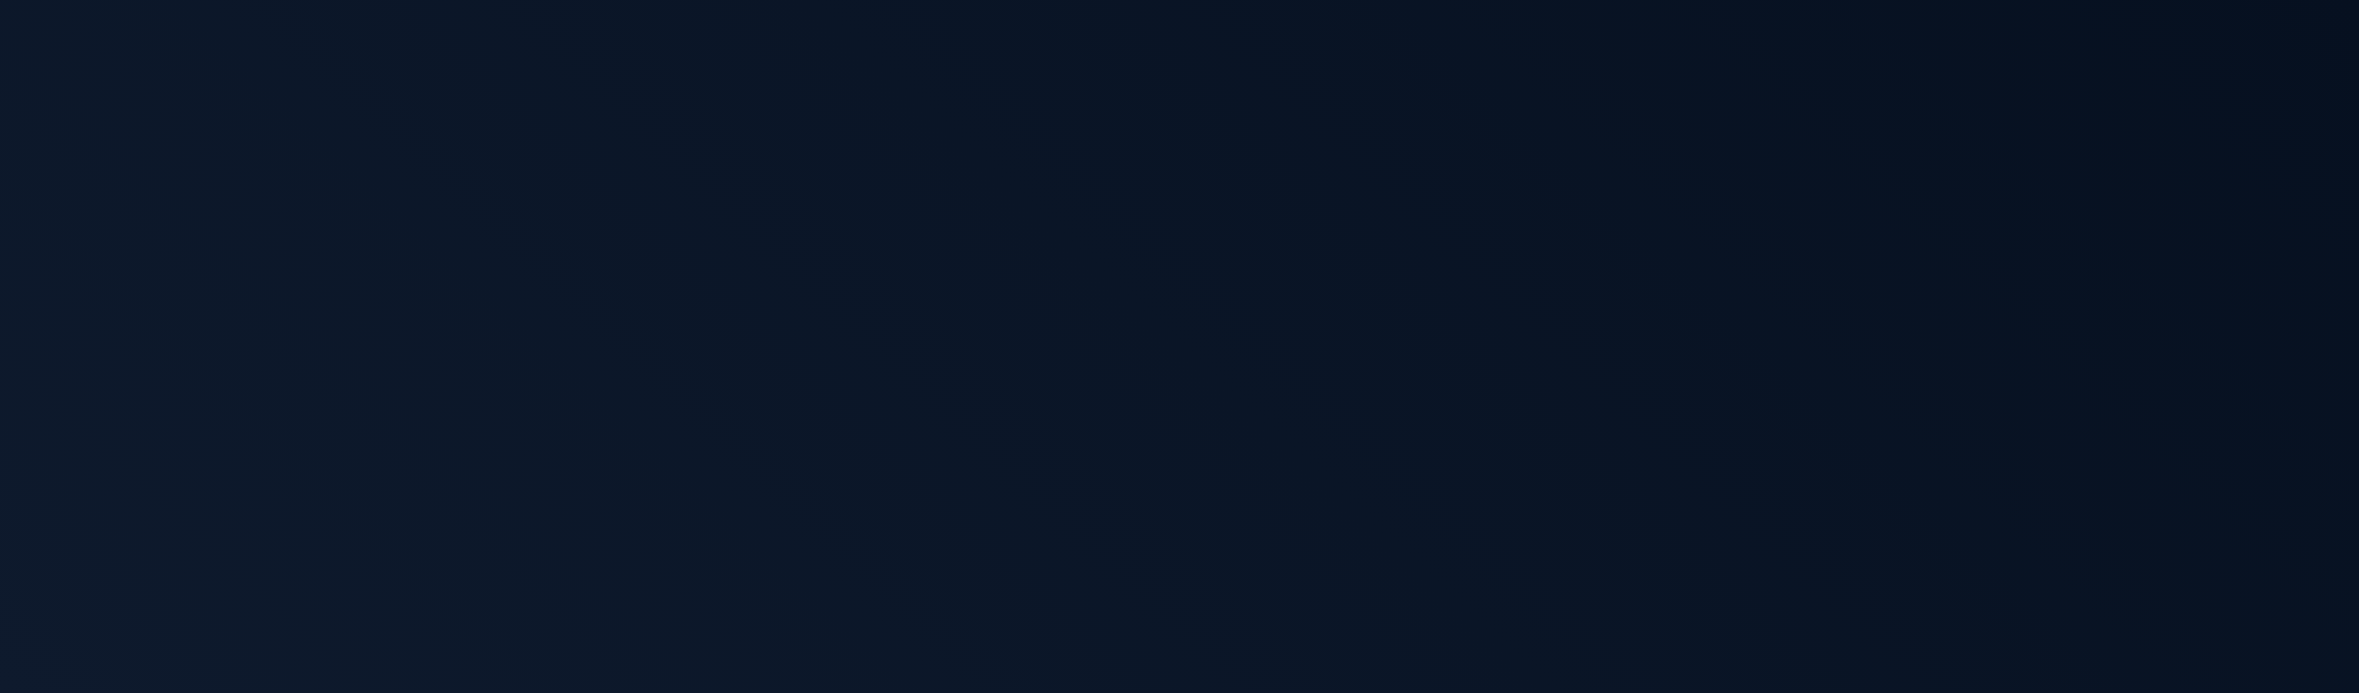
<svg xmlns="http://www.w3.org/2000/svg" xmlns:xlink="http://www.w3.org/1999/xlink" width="2359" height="693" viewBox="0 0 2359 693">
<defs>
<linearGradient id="g1" gradientUnits="userSpaceOnUse" x1="1901" y1="-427" x2="458" y2="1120"><stop offset="0" stop-color="#061020"/><stop offset="1" stop-color="#0e1a2d"/></linearGradient>
</defs>
<rect width="100%" height="100%" fill="#ffffff"/>
<rect fill="url(#g1)" x="0" y="0" width="2359" height="693"/>
</svg>
